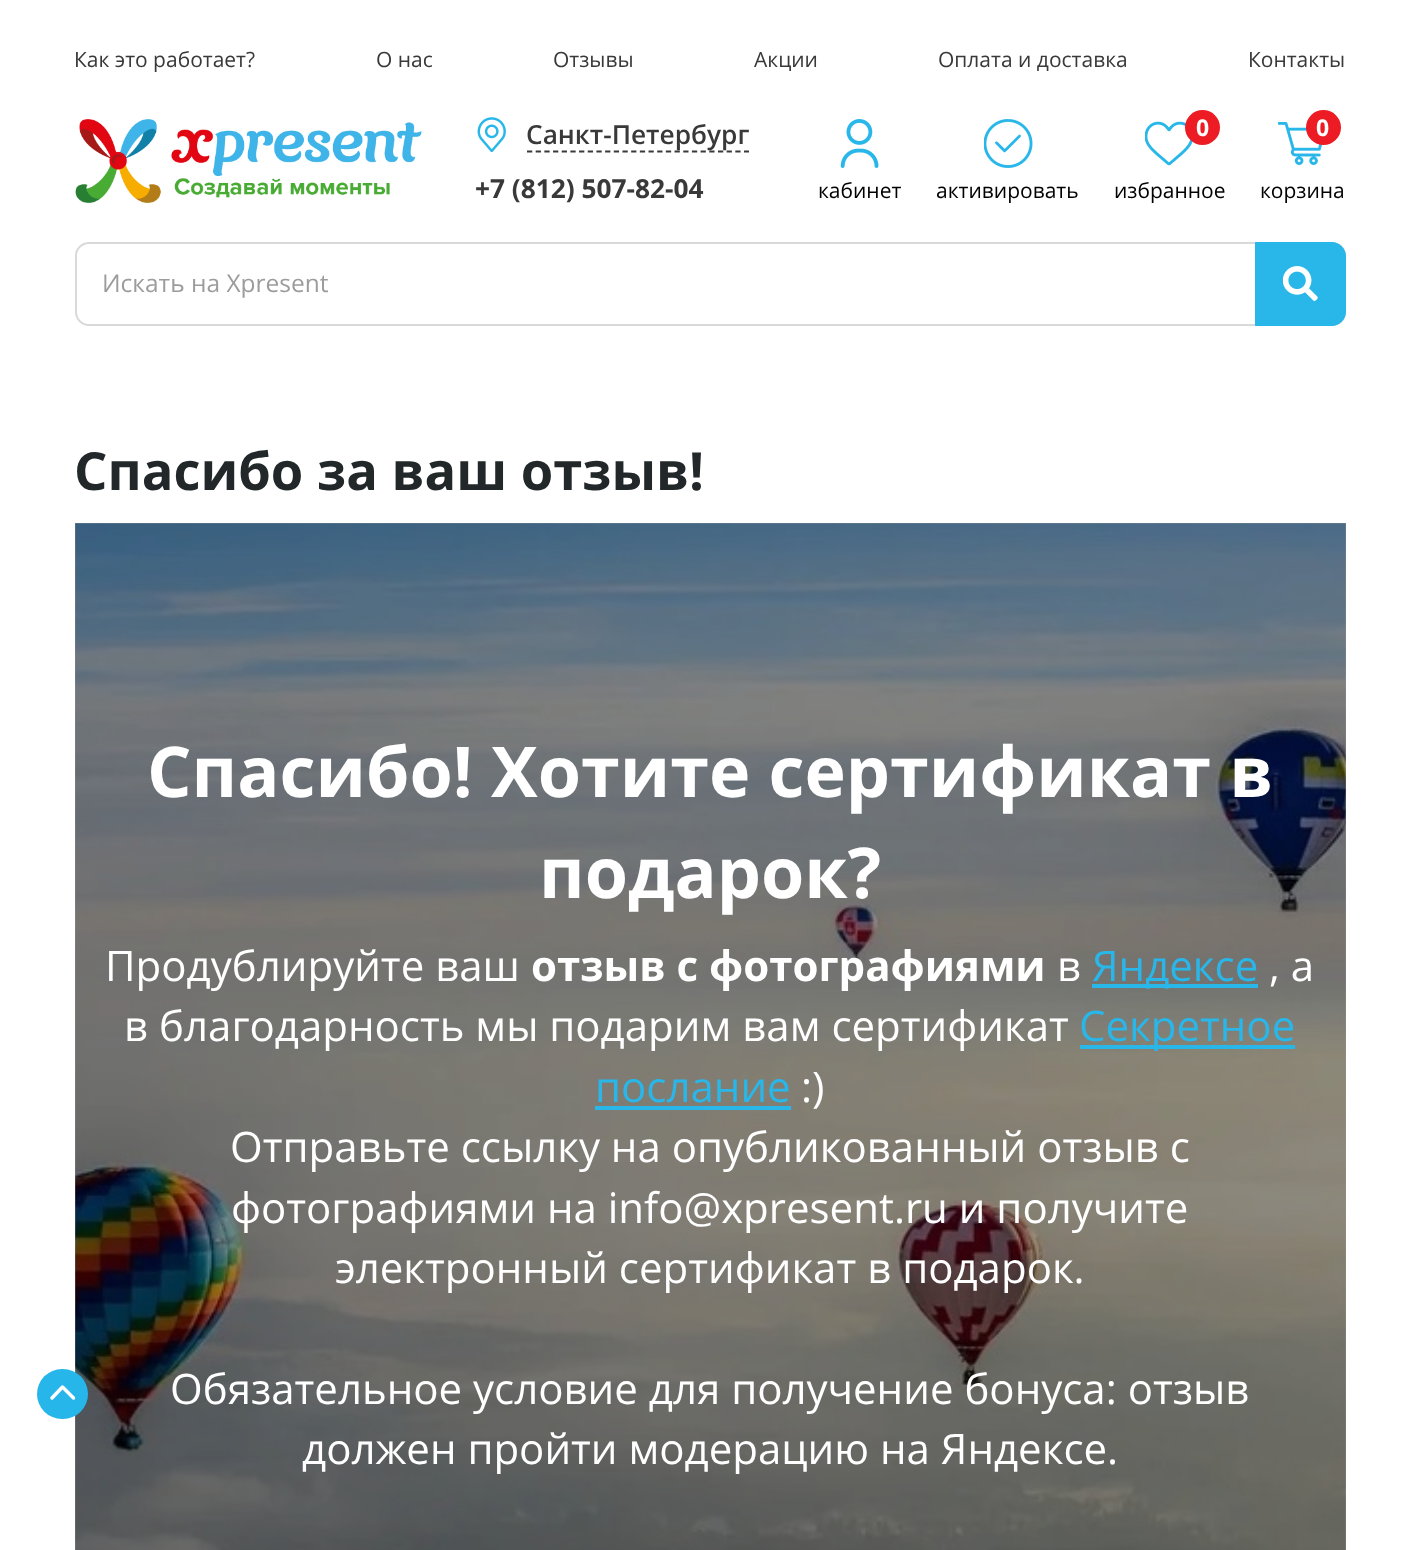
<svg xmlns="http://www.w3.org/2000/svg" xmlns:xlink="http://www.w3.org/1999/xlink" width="1418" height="1550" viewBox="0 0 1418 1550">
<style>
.cls-1{font:21px Open Sans;fill:#393939}
.cls-2{font:600 26.25px Open Sans;fill:#393939}
.cls-3{font:bold 26.25px Open Sans;fill:#393939}
.cls-4{font:21px Open Sans;fill:#000000}
.cls-5{font:bold 23px Open Sans;fill:#ffffff}
.cls-6{font:24.5px Open Sans;fill:#9c9c9c}
.cls-7{font:bold 52.5px Open Sans;fill:#222729}
.cls-8{font:bold 70px Open Sans;fill:#ffffff}
.cls-9{font:42px Open Sans;fill:#ffffff}
.cls-10{font:bold 42px Open Sans;fill:#ffffff}
.cls-11{font:42px Open Sans;fill:#29b7ea}
</style>
<rect width="100%" height="100%" fill="#ffffff"/>
<rect fill="#999999" x="75" y="523" width="1271" height="1027"/>
<image xlink:href="image7.png" x="75" y="523" width="1271" height="1027"/>
<rect fill="#26b6ea" x="37" y="1369" width="51" height="50" rx="25"/>
<path fill="none" stroke="#ffffff" stroke-width="3.5" stroke-linecap="round" stroke-linejoin="round" d="M73.5 1398L62.5 1387L52 1398"/>
<image xlink:href="image0.png" x="75" y="119" width="347" height="84"/>
<image xlink:href="image1.png" x="477" y="117" width="29" height="35"/>
<path fill="none" stroke="#393939" stroke-width="1.8" stroke-dasharray="5.25 3.43" d="M527 151.5H749"/>
<image xlink:href="image2.png" x="840" y="119" width="39" height="49"/>
<image xlink:href="image3.png" x="984" y="119" width="49" height="49"/>
<image xlink:href="image4.png" x="1145" y="121" width="48" height="45"/>
<circle fill="#ed1c24" cx="1202.5" cy="127.5" r="17.5"/>
<image xlink:href="image5.png" x="1278" y="121" width="45" height="44"/>
<circle fill="#ed1c24" cx="1323.5" cy="127.5" r="17.5"/>
<rect fill="none" stroke="#d9d9d9" stroke-width="2" x="76" y="243" width="1269" height="82" rx="13"/>
<path fill="#29b7ea" d="M1255 242H1332C1339.5 242 1346 248.5 1346 256V312C1346 319.5 1339.5 326 1332 326H1255Z"/>
<image xlink:href="image6.png" x="1283" y="266" width="35" height="35"/>
<rect fill="#29b7ea" x="1092" y="984" width="166" height="4"/>
<rect fill="#29b7ea" x="1080" y="1045" width="215" height="4"/>
<rect fill="#29b7ea" x="595" y="1106" width="196" height="4"/>
<text class="cls-1" x="74" y="67">Как это работает?</text>
<text class="cls-1" x="376" y="67">О нас</text>
<text class="cls-1" x="553" y="67">Отзывы</text>
<text class="cls-1" x="754" y="67">Акции</text>
<text class="cls-1" x="938" y="67">Оплата и доставка</text>
<text class="cls-1" x="1248" y="67">Контакты</text>
<text class="cls-2" x="526" y="144">Санкт-Петербург</text>
<text class="cls-3" x="475" y="198">+7 (812) 507-82-04</text>
<text class="cls-4" x="818" y="198">кабинет</text>
<text class="cls-4" x="936" y="198">активировать</text>
<text class="cls-5" x="1196" y="136">0</text>
<text class="cls-4" x="1114" y="198">избранное</text>
<text class="cls-5" x="1316" y="136">0</text>
<text class="cls-4" x="1260" y="198">корзина</text>
<text class="cls-6" x="102" y="292">Искать на Xpresent</text>
<text class="cls-7" x="74" y="490">Спасибо за ваш отзыв!</text>
<text class="cls-8" x="147" y="797">Спасибо! Хотите сертификат в</text>
<text class="cls-8" x="539" y="898">подарок?</text>
<text class="cls-9" x="105" y="981">Продублируйте ваш</text>
<text class="cls-10" x="531" y="981">отзыв с фотографиями</text>
<text class="cls-9" x="1057" y="981">в</text>
<text class="cls-11" x="1092" y="981">Яндексе</text>
<text class="cls-9" x="1269" y="981">, а</text>
<text class="cls-9" x="124" y="1041">в благодарность мы подарим вам сертификат</text>
<text class="cls-11" x="1079" y="1041">Секретное</text>
<text class="cls-11" x="595" y="1102">послание</text>
<text class="cls-9" x="801" y="1102">:)</text>
<text class="cls-9" x="230" y="1162">Отправьте ссылку на опубликованный отзыв с</text>
<text class="cls-9" x="231" y="1223">фотографиями на info@xpresent.ru и получите</text>
<text class="cls-9" x="335" y="1283">электронный сертификат в подарок.</text>
<text class="cls-9" x="170" y="1404">Обязательное условие для получение бонуса: отзыв</text>
<text class="cls-9" x="302" y="1464">должен пройти модерацию на Яндексе.</text>
</svg>
